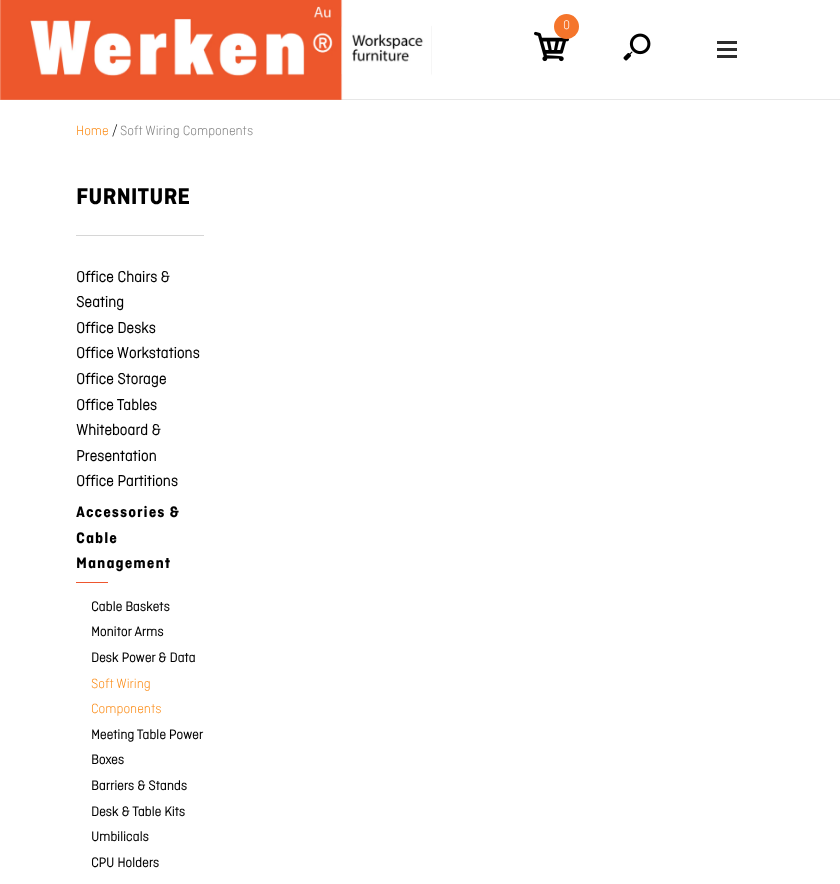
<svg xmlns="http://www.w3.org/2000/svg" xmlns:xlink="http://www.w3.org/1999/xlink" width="840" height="884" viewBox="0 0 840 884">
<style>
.cls-1{font:300 13px 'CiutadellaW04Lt';fill:#ffffff}
.cls-2{font:300 14px 'CiutadellaW04Lt';fill:#fb8a13}
.cls-3{font:300 14px 'CiutadellaW04Lt';fill:#000000}
.cls-4{font:300 14px 'CiutadellaW04Lt';fill:#808080}
.cls-5{font:bold 24px 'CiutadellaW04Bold';fill:#000000}
.cls-6{font:bold 16px 'CiutadellaW04Lt';fill:#000000}
.cls-7{font:bold 16px 'CiutadellaW04Bold';letter-spacing:1px;fill:#000000}
.cls-8{font:bold 14px 'CiutadellaW04Lt';fill:#000000}
</style>
<rect width="100%" height="100%" fill="#ffffff"/>
<rect fill="#e7e7e7" x="0" y="99" width="840" height="1"/>
<image xlink:href="image0.png" x="0" y="0" width="432" height="100"/>
<image xlink:href="image1.png" x="534" y="31" width="35" height="31"/>
<circle fill="#f5752b" cx="566.5" cy="26.5" r="12.5"/>
<image xlink:href="image2.png" x="623" y="33" width="28" height="28"/>
<rect fill="#2d2d2d" x="717" y="48" width="20" height="3"/>
<rect fill="#2d2d2d" x="717" y="41" width="20" height="3"/>
<rect fill="#2d2d2d" x="717" y="55" width="20" height="3"/>
<rect fill="#d6d6d6" x="76" y="235" width="128" height="1"/>
<rect fill="#ee562e" x="76" y="582" width="32" height="1"/>
<text class="cls-1" x="563" y="29">0</text>
<text class="cls-2" x="76" y="135">Home</text>
<text class="cls-3" x="112" y="135">/</text>
<text class="cls-4" x="120" y="135">Soft Wiring Components</text>
<text class="cls-5" x="76" y="204">FURNITURE</text>
<text class="cls-6"><tspan x="76" y="282">Office Chairs &amp;</tspan><tspan x="76" y="307">Seating</tspan><tspan x="76" y="333">Office Desks</tspan><tspan x="76" y="358">Office Workstations</tspan><tspan x="76" y="384">Office Storage</tspan><tspan x="76" y="410">Office Tables</tspan><tspan x="76" y="435">Whiteboard &amp;</tspan><tspan x="76" y="461">Presentation</tspan><tspan x="76" y="486">Office Partitions</tspan></text>
<text class="cls-7"><tspan x="76" y="517">Accessories &amp;</tspan><tspan x="76" y="543">Cable</tspan><tspan x="76" y="568">Management</tspan></text>
<text class="cls-8"><tspan x="91" y="611">Cable Baskets</tspan><tspan x="91" y="636">Monitor Arms</tspan><tspan x="91" y="662">Desk Power &amp; Data</tspan></text>
<text class="cls-2"><tspan x="91" y="688">Soft Wiring</tspan><tspan x="91" y="713">Components</tspan></text>
<text class="cls-8"><tspan x="91" y="739">Meeting Table Power</tspan><tspan x="91" y="764">Boxes</tspan><tspan x="91" y="790">Barriers &amp; Stands</tspan><tspan x="91" y="816">Desk &amp; Table Kits</tspan><tspan x="91" y="841">Umbilicals</tspan><tspan x="91" y="867">CPU Holders</tspan></text>
</svg>
